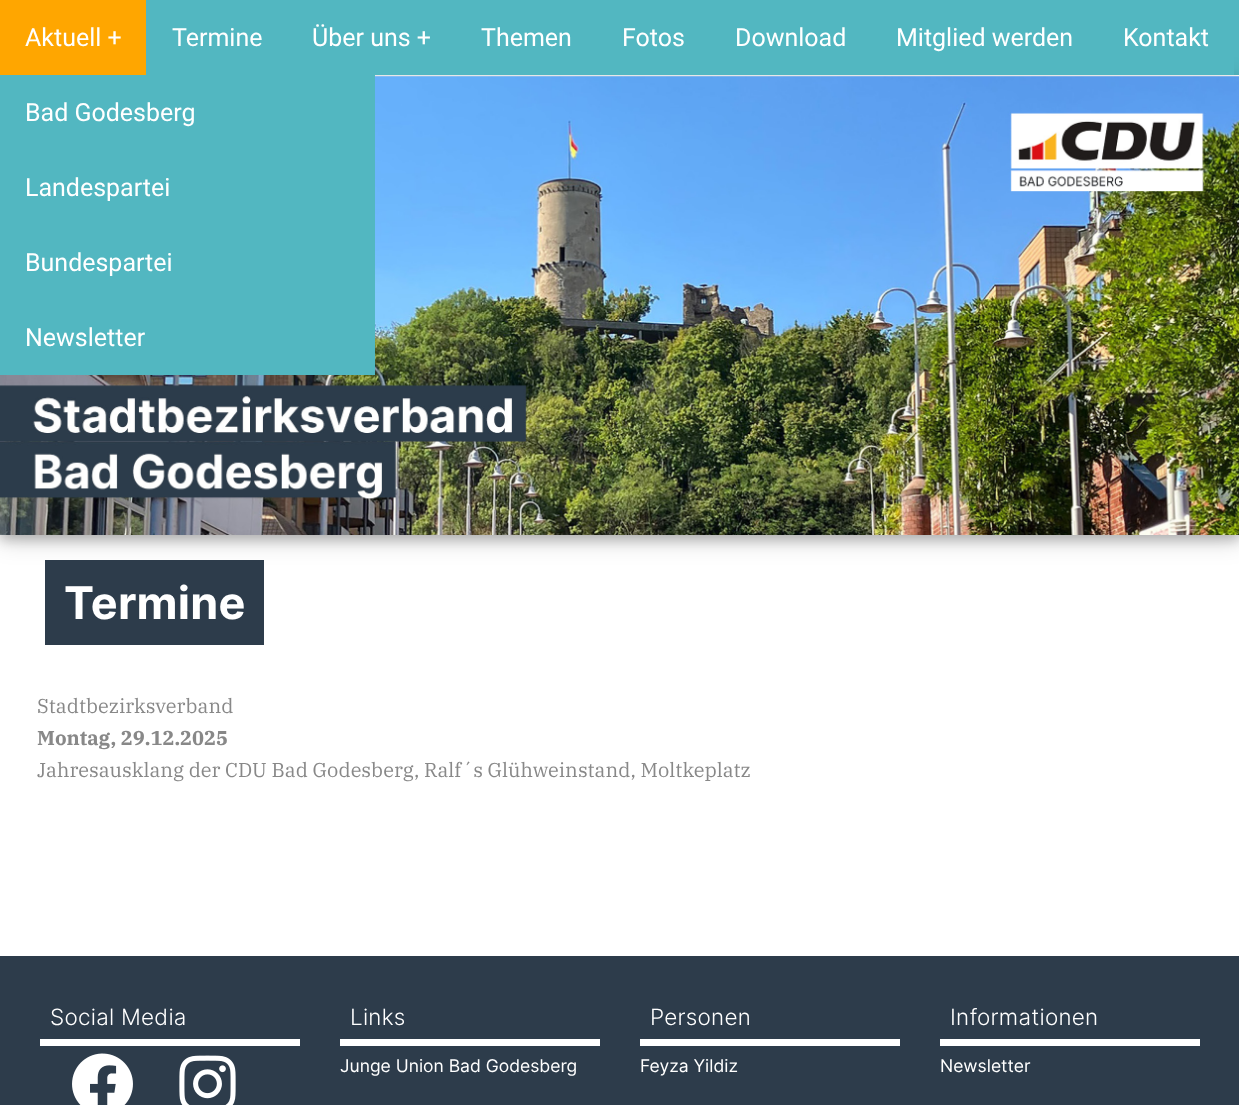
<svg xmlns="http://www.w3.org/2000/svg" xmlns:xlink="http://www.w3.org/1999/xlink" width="1239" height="1105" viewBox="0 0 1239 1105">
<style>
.cls-1{font:25px Roboto;fill:#ffffff}
.cls-2{font:bold 45px Inter;letter-spacing:0.25px;fill:#ffffff}
.cls-3{font:20px IBM Plex Serif;fill:#888888}
.cls-4{font:bold 20px IBM Plex Serif;fill:#888888}
.cls-5{font:300 22.5px Inter;letter-spacing:0.25px;fill:#ffffff}
.cls-6{font:17.5px Inter;fill:#ffffff}
</style>
<rect width="100%" height="100%" fill="#ffffff"/>
<rect fill="#52b7c1" x="1234" y="0" width="5" height="75"/>
<rect fill="#000000" fill-opacity="0.19" filter="blur(12.5px)" x="0" y="81" width="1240" height="459"/>
<rect fill="#000000" fill-opacity="0.2" filter="blur(6px)" x="0" y="81" width="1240" height="459"/>
<rect fill="#ffa600" x="0" y="0" width="146" height="75"/>
<image xlink:href="image0.png" x="0" y="76" width="1239" height="459"/>
<rect fill="#52b7c1" x="0" y="75" width="375" height="300"/>
<rect fill="#52b7c1" x="146" y="0" width="1088" height="75"/>
<rect fill="#2d3c4b" x="45" y="560" width="219" height="85"/>
<rect fill="#2d3c4b" x="0" y="956" width="1239" height="149"/>
<rect fill="#ffffff" x="40" y="1039" width="260" height="7"/>
<image xlink:href="image1.png" x="72" y="1053" width="61" height="52"/>
<image xlink:href="image2.png" x="179" y="1055" width="57" height="50"/>
<rect fill="#ffffff" x="340" y="1039" width="260" height="7"/>
<rect fill="#ffffff" x="640" y="1039" width="260" height="7"/>
<rect fill="#ffffff" x="940" y="1039" width="260" height="7"/>
<text class="cls-1" x="25" y="46">Aktuell +</text>
<text class="cls-1" x="25" y="121">Bad Godesberg</text>
<text class="cls-1" x="25" y="196">Landespartei</text>
<text class="cls-1" x="25" y="271">Bundespartei</text>
<text class="cls-1" x="25" y="346">Newsletter</text>
<text class="cls-1" x="172" y="46">Termine</text>
<text class="cls-1" x="312" y="46">Über uns +</text>
<text class="cls-1" x="481" y="46">Themen</text>
<text class="cls-1" x="622" y="46">Fotos</text>
<text class="cls-1" x="735" y="46">Download</text>
<text class="cls-1" x="896" y="46">Mitglied werden</text>
<text class="cls-1" x="1123" y="46">Kontakt</text>
<text class="cls-2" x="64" y="619">Termine</text>
<text class="cls-3" x="37" y="713">Stadtbezirksverband</text>
<text class="cls-4" x="37" y="745">Montag, 29.12.2025</text>
<text class="cls-3" x="37" y="777">Jahresausklang der CDU Bad Godesberg, Ralf´s Glühweinstand, Moltkeplatz</text>
<text class="cls-5" x="50" y="1025">Social Media</text>
<text class="cls-5" x="350" y="1025">Links</text>
<text class="cls-6" x="340" y="1072">Junge Union Bad Godesberg</text>
<text class="cls-5" x="650" y="1025">Personen</text>
<text class="cls-6" x="640" y="1072">Feyza Yildiz</text>
<text class="cls-5" x="950" y="1025">Informationen</text>
<text class="cls-6" x="940" y="1072">Newsletter</text>
</svg>
